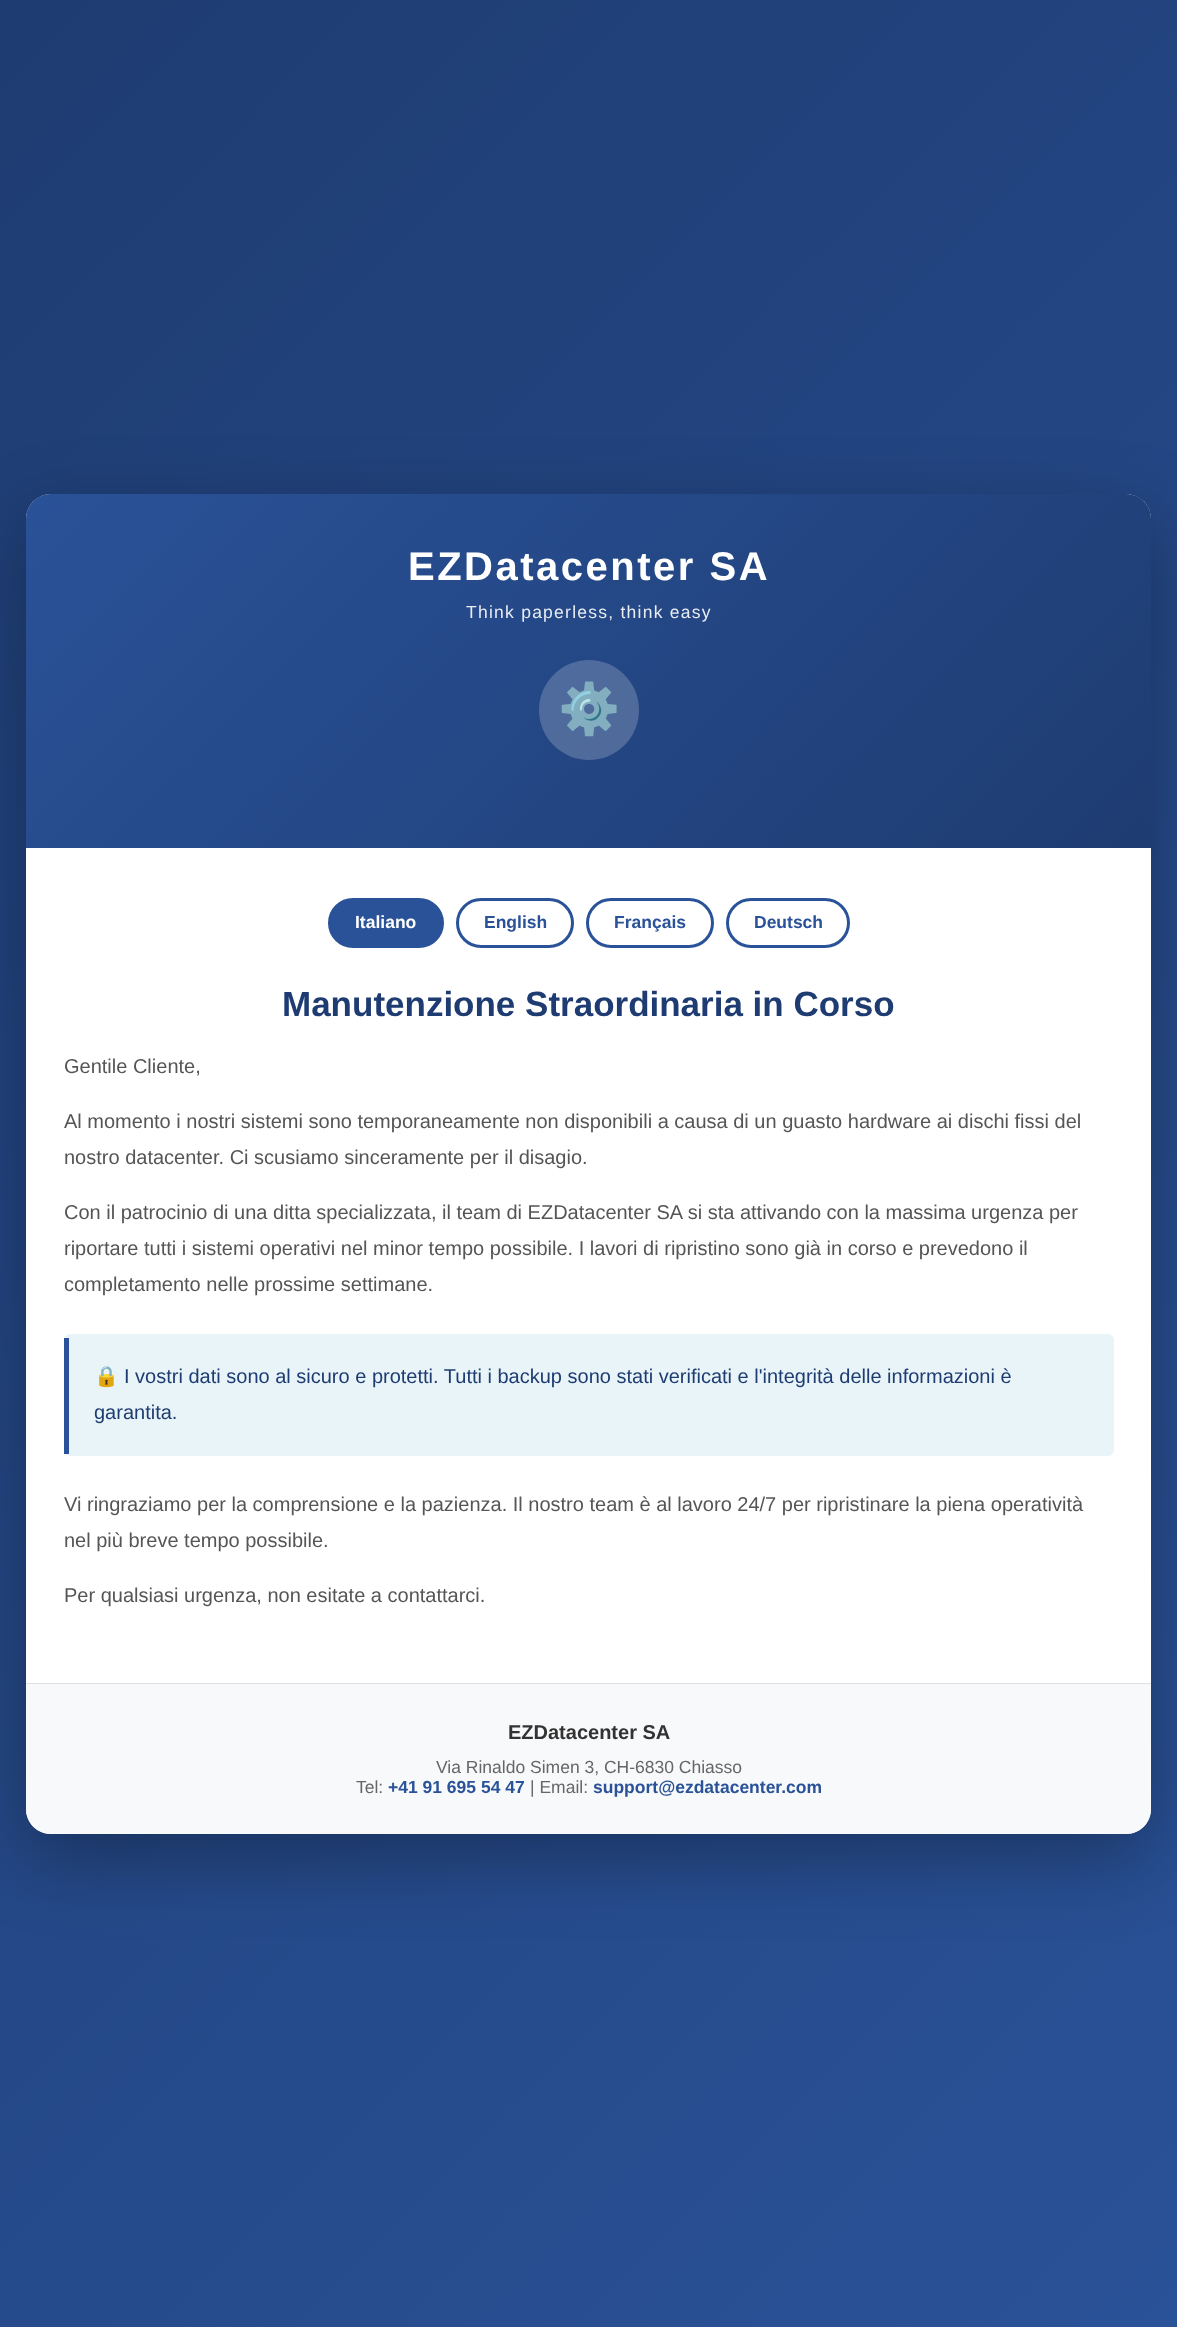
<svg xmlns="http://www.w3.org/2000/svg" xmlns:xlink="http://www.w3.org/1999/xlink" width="1177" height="2327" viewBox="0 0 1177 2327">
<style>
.cls-1{font:bold 40px Liberation Sans;letter-spacing:2.5px;fill:#ffffff}
.cls-2{font:17.5px Liberation Sans;letter-spacing:1.25px;fill:#e9edf3}
.cls-3{font:50px Noto Color Emoji;fill:#ffffff}
.cls-4{font:bold 17.5px Liberation Sans;fill:#ffffff}
.cls-5{font:bold 17.5px Liberation Sans;fill:#2a5298}
.cls-6{font:bold 35px Liberation Sans;fill:#1e3c72}
.cls-7{font:20px Liberation Sans;fill:#555555}
.cls-8{font:20px Noto Color Emoji;fill:#1e3c72}
.cls-9{font:20px Liberation Sans;fill:#1e3c72}
.cls-10{font:bold 20px Liberation Sans;fill:#333333}
.cls-11{font:17.5px Liberation Sans;fill:#666666}
</style>
<defs>
<linearGradient id="g1" gradientUnits="userSpaceOnUse" x1="-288" y1="288" x2="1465" y2="2040"><stop offset="0" stop-color="#1e3c72"/><stop offset="1" stop-color="#2a5298"/></linearGradient>
<linearGradient id="g2" gradientUnits="userSpaceOnUse" x1="219" y1="301" x2="958" y2="1040"><stop offset="0" stop-color="#2a5298"/><stop offset="1" stop-color="#1e3c72"/></linearGradient>
</defs>
<rect width="100%" height="100%" fill="#ffffff"/>
<rect fill="url(#g1)" x="0" y="0" width="1177" height="2327"/>
<rect fill="#000000" fill-opacity="0.3" filter="blur(37.5px)" x="26" y="519" width="1125" height="1340" rx="25"/>
<rect fill="#ffffff" x="26" y="494" width="1125" height="1340" rx="25"/>
<path fill="url(#g2)" d="M51 494H1126C1140 494 1151 505 1151 519V848H26V519C26 505 37 494 51 494Z"/>
<circle fill="#ffffff" fill-opacity="0.2" cx="589" cy="710" r="50"/>
<rect fill="#2a5298" stroke="#2a5298" stroke-width="3" x="329.5" y="899.5" width="113" height="47" rx="23.5"/>
<rect fill="none" stroke="#2a5298" stroke-width="3" x="457.5" y="899.5" width="115" height="47" rx="23.5"/>
<rect fill="none" stroke="#2a5298" stroke-width="3" x="587.5" y="899.5" width="125" height="47" rx="23.5"/>
<rect fill="none" stroke="#2a5298" stroke-width="3" x="727.5" y="899.5" width="121" height="47" rx="23.5"/>
<rect fill="#e8f4f8" x="64" y="1334" width="1050" height="122" rx="6"/>
<rect fill="#2a5298" x="64" y="1338" width="5" height="116"/>
<path fill="#f8f9fa" d="M26 1683H1151V1809C1151 1823 1140 1834 1126 1834H51C37 1834 26 1823 26 1809Z"/>
<rect fill="#e0e0e0" x="26" y="1683" width="1125" height="1"/>
<text class="cls-1" x="408" y="580">EZDatacenter SA</text>
<text class="cls-2" x="466" y="618">Think paperless, think easy</text>
<text class="cls-3" x="558" y="726">⚙️</text>
<text class="cls-4" x="355" y="928">Italiano</text>
<text class="cls-5" x="484" y="928">English</text>
<text class="cls-5" x="614" y="928">Français</text>
<text class="cls-5" x="754" y="928">Deutsch</text>
<text class="cls-6" x="282" y="1016">Manutenzione Straordinaria in Corso</text>
<text class="cls-7" x="64" y="1073">Gentile Cliente,</text>
<text class="cls-7"><tspan x="64" y="1128">Al momento i nostri sistemi sono temporaneamente non disponibili a causa di un guasto hardware ai dischi fissi del</tspan><tspan x="64" y="1164">nostro datacenter. Ci scusiamo sinceramente per il disagio.</tspan></text>
<text class="cls-7"><tspan x="64" y="1219">Con il patrocinio di una ditta specializzata, il team di EZDatacenter SA si sta attivando con la massima urgenza per</tspan><tspan x="64" y="1255">riportare tutti i sistemi operativi nel minor tempo possibile. I lavori di ripristino sono già in corso e prevedono il</tspan><tspan x="64" y="1291">completamento nelle prossime settimane.</tspan></text>
<text class="cls-8" x="94" y="1383">🔒</text>
<text class="cls-9" x="124" y="1383">I vostri dati sono al sicuro e protetti. Tutti i backup sono stati verificati e l'integrità delle informazioni è</text>
<text class="cls-9" x="94" y="1419">garantita.</text>
<text class="cls-7"><tspan x="64" y="1511">Vi ringraziamo per la comprensione e la pazienza. Il nostro team è al lavoro 24/7 per ripristinare la piena operatività</tspan><tspan x="64" y="1547">nel più breve tempo possibile.</tspan></text>
<text class="cls-7" x="64" y="1602">Per qualsiasi urgenza, non esitate a contattarci.</text>
<text class="cls-10" x="508" y="1739">EZDatacenter SA</text>
<text class="cls-11" x="436" y="1773">Via Rinaldo Simen 3, CH-6830 Chiasso</text>
<text class="cls-11" x="356" y="1793">Tel:</text>
<text class="cls-5" x="388" y="1793">+41 91 695 54 47</text>
<text class="cls-11" x="530" y="1793">| Email:</text>
<text class="cls-5" x="593" y="1793">support@ezdatacenter.com</text>
</svg>
